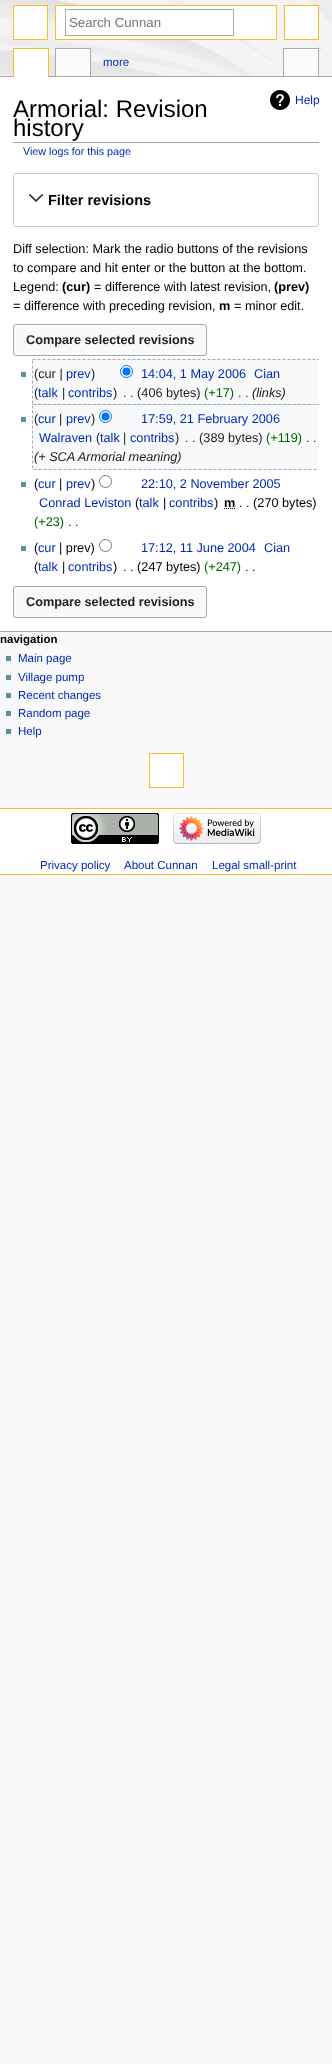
<svg xmlns="http://www.w3.org/2000/svg" xmlns:xlink="http://www.w3.org/1999/xlink" width="332" height="2064" viewBox="0 0 332 2064">
<style>
.cls-1{font:13.25px Liberation Sans;fill:#757575}
.cls-2{font:bold 11.5px Liberation Sans;fill:#000000}
.cls-3{font:11.5px Liberation Sans;fill:#002bb8}
.cls-4{font:24px Liberation Sans;fill:#000000}
.cls-5{font:12px Liberation Sans;fill:#002bb8}
.cls-6{font:10.75px Liberation Sans;fill:#002bb8}
.cls-7{font:bold 14.5px Liberation Sans;fill:#000000}
.cls-8{font:12.7px Liberation Sans;fill:#000000}
.cls-9{font:bold 12.7px Liberation Sans;fill:#000000}
.cls-10{font:bold 12.7px Liberation Sans;fill:#202122}
.cls-11{font:12.7px Liberation Sans;fill:#202122}
.cls-12{font:12.7px Liberation Sans;fill:#002bb8}
.cls-13{font:12.7px Liberation Sans;fill:#006400}
.cls-14{font:italic 12.7px Liberation Sans;fill:#202122}
</style>
<defs>
<clipPath id="clip1"><rect x="13" y="145" width="306" height="473"/></clipPath>
</defs>
<rect width="100%" height="100%" fill="#f9f9f9"/>
<image xlink:href="image0.png" x="0" y="0" width="332" height="76"/>
<rect fill="#ffffff" stroke="#fabd23" x="13.5" y="5.5" width="34" height="34"/>
<rect fill="#ffffff" stroke="#fabd23" x="284.5" y="5.5" width="34" height="34"/>
<rect fill="#ffffff" stroke="#fabd23" x="55.5" y="5.5" width="221" height="34"/>
<rect fill="none" stroke="#aaaaaa" x="65.5" y="9.5" width="168" height="26"/>
<rect fill="#638c9c" x="6" y="656" width="5" height="5"/>
<rect fill="#638c9c" x="6" y="675" width="5" height="5"/>
<rect fill="#638c9c" x="6" y="693" width="5" height="5"/>
<rect fill="#638c9c" x="6" y="711" width="5" height="5"/>
<rect fill="#638c9c" x="6" y="729" width="5" height="5"/>
<rect fill="#fabd23" x="13" y="48" width="36" height="1"/>
<rect fill="#fabd23" x="48" y="48" width="1" height="29"/>
<rect fill="#fabd23" x="13" y="48" width="1" height="29"/>
<rect fill="#aaaaaa" x="55" y="48" width="36" height="1"/>
<rect fill="#aaaaaa" x="90" y="48" width="1" height="29"/>
<rect fill="#aaaaaa" x="55" y="48" width="1" height="29"/>
<rect fill="#aaaaaa" x="283" y="48" width="36" height="1"/>
<rect fill="#aaaaaa" x="318" y="48" width="1" height="29"/>
<rect fill="#aaaaaa" x="283" y="48" width="1" height="29"/>
<rect fill="#aaaaaa" x="0" y="76" width="332" height="1"/>
<rect fill="#ffffff" x="14" y="49" width="34" height="28"/>
<rect fill="#fbfbfb" x="56" y="49" width="34" height="27"/>
<rect fill="#fbfbfb" x="284" y="49" width="34" height="27"/>
<rect fill="#ffffff" stroke="#fabd23" x="149.5" y="753.5" width="34" height="34"/>
<rect fill="#ffffff" x="0" y="77" width="332" height="554"/>
<rect fill="#aaaaaa" x="0" y="631" width="332" height="1"/>
<rect fill="#a2a9b1" x="13" y="142" width="306" height="1"/>
<image xlink:href="image1.png" x="270" y="90" width="20" height="20"/>
<rect fill="none" stroke="#cccccc" x="13.5" y="173.5" width="305" height="53" rx="2.5"/>
<image xlink:href="image2.png" x="29" y="194" width="15" height="8"/>
<rect fill="#f8f9fa" stroke="#a2a9b1" x="13.5" y="324.5" width="193" height="31" rx="2.5"/>
<rect fill="#f8f9fa" x="33" y="360" width="286" height="44"/>
<rect fill="#638c9c" x="21" y="372" width="5" height="5"/>
<circle fill="#ffffff" stroke="#0075ff" cx="126.5" cy="371.5" r="6"/>
<circle fill="#0075ff" cx="126.5" cy="371.5" r="4"/>
<rect fill="#f8f9fa" x="33" y="405" width="286" height="64"/>
<rect fill="#638c9c" x="21" y="417" width="5" height="5"/>
<circle fill="#ffffff" stroke="#0075ff" cx="105.5" cy="416.5" r="6"/>
<circle fill="#0075ff" cx="105.5" cy="416.5" r="4"/>
<rect fill="#638c9c" x="21" y="482" width="5" height="5"/>
<circle fill="none" stroke="#767676" cx="105.5" cy="481.5" r="6"/>
<path fill="none" stroke="#000000" stroke-dasharray="1 1" d="M224 508.5H235.5"/>
<rect fill="#638c9c" x="21" y="546" width="5" height="5"/>
<circle fill="none" stroke="#767676" cx="105.5" cy="545.5" r="6"/>
<rect fill="#f8f9fa" stroke="#a2a9b1" x="13.5" y="586.5" width="193" height="31" rx="2.5"/>
<rect fill="#ffffff" x="0" y="809" width="332" height="65"/>
<rect fill="#fabd23" x="0" y="808" width="332" height="1"/>
<rect fill="#fabd23" x="0" y="874" width="332" height="1"/>
<image xlink:href="image3.png" x="71" y="813" width="88" height="31"/>
<image xlink:href="image4.png" x="173" y="813" width="88" height="31"/>
<text class="cls-1" x="69" y="27">Search Cunnan</text>
<text class="cls-2" x="0" y="643">navigation</text>
<text class="cls-3"><tspan x="18" y="662">Main page</tspan><tspan x="18" y="681">Village pump</tspan><tspan x="18" y="699">Recent changes</tspan><tspan x="18" y="717">Random page</tspan><tspan x="18" y="735">Help</tspan></text>
<text class="cls-3" x="103" y="66">more</text>
<text class="cls-4"><tspan x="13" y="117">Armorial: Revision</tspan><tspan x="13" y="136">history</tspan></text>
<text class="cls-5" x="295" y="104">Help</text>
<text class="cls-6" x="23" y="155">View logs for this page</text>
<text class="cls-7" x="48" y="205">Filter revisions</text>
<text class="cls-8"><tspan x="13" y="253">Diff selection: Mark the radio buttons of the revisions</tspan><tspan x="13" y="272">to compare and hit enter or the button at the bottom.</tspan><tspan x="13" y="291">Legend:</tspan></text>
<text class="cls-9" x="62" y="291">(cur)</text>
<text class="cls-8" x="94" y="291">= difference with latest revision,</text>
<text class="cls-9" x="274" y="291">(prev)</text>
<text class="cls-8" x="13" y="310">= difference with preceding revision,</text>
<text class="cls-9" x="219" y="310">m</text>
<text class="cls-8" x="234" y="310">= minor edit.</text>
<text class="cls-10" x="26" y="344">Compare selected revisions</text>
<text class="cls-11" x="34" y="378">(cur |</text>
<text class="cls-12" x="66" y="378">prev</text>
<text class="cls-11" x="91" y="378">)</text>
<text class="cls-12" x="254" y="378">Cian</text>
<text class="cls-11" x="34" y="397">(</text>
<text class="cls-12" x="38" y="397">talk</text>
<text class="cls-11" x="62" y="397">|</text>
<text class="cls-12" x="68" y="397">contribs</text>
<text class="cls-11" x="113" y="397">)</text>
<text class="cls-12" x="141" y="378">14:04, 1 May 2006</text>
<text class="cls-11" x="123" y="397">. . (406 bytes)</text>
<text class="cls-13" x="204" y="397">(+17)</text>
<text class="cls-11" x="238" y="397">. .</text>
<text class="cls-14" x="252" y="397">(links)</text>
<g clip-path="url(#clip1)">
<path fill="none" stroke="#a2a9b1" stroke-dasharray="3 2" d="M32.5 359.5H319.5V404.5H32.5Z"/>
</g>
<text class="cls-11" x="34" y="423">(</text>
<text class="cls-12" x="38" y="423">cur</text>
<text class="cls-11" x="59" y="423">|</text>
<text class="cls-12" x="66" y="423">prev</text>
<text class="cls-11" x="91" y="423">)</text>
<text class="cls-12" x="141" y="423">17:59, 21 February 2006</text>
<text class="cls-12" x="39" y="442">Walraven</text>
<text class="cls-11" x="96" y="442">(</text>
<text class="cls-12" x="100" y="442">talk</text>
<text class="cls-11" x="123" y="442">|</text>
<text class="cls-12" x="130" y="442">contribs</text>
<text class="cls-11" x="175" y="442">)</text>
<text class="cls-11" x="185" y="442">. . (389 bytes)</text>
<text class="cls-13" x="266" y="442">(+119)</text>
<text class="cls-11" x="306" y="442">. .</text>
<text class="cls-14" x="34" y="461">(+ SCA Armorial meaning)</text>
<g clip-path="url(#clip1)">
<path fill="none" stroke="#a2a9b1" stroke-dasharray="3 2" d="M32.5 404.5H319.5V469.5H32.5Z"/>
</g>
<text class="cls-8" x="34" y="488">(</text>
<text class="cls-12" x="38" y="488">cur</text>
<text class="cls-8" x="59" y="488">|</text>
<text class="cls-12" x="66" y="488">prev</text>
<text class="cls-8" x="91" y="488">)</text>
<text class="cls-12" x="141" y="488">22:10, 2 November 2005</text>
<text class="cls-12" x="39" y="507">Conrad Leviston</text>
<text class="cls-8" x="135" y="507">(</text>
<text class="cls-12" x="139" y="507">talk</text>
<text class="cls-8" x="163" y="507">|</text>
<text class="cls-12" x="169" y="507">contribs</text>
<text class="cls-8" x="214" y="507">)</text>
<text class="cls-9" x="224" y="507">m</text>
<text class="cls-8" x="239" y="507">. . (270 bytes)</text>
<text class="cls-13" x="34" y="526">(+23)</text>
<text class="cls-8" x="68" y="526">. .</text>
<text class="cls-8" x="34" y="552">(</text>
<text class="cls-12" x="38" y="552">cur</text>
<text class="cls-8" x="59" y="552">| prev)</text>
<text class="cls-12" x="264" y="552">Cian</text>
<text class="cls-8" x="34" y="571">(</text>
<text class="cls-12" x="38" y="571">talk</text>
<text class="cls-8" x="62" y="571">|</text>
<text class="cls-12" x="68" y="571">contribs</text>
<text class="cls-8" x="113" y="571">)</text>
<text class="cls-12" x="141" y="552">17:12, 11 June 2004</text>
<text class="cls-8" x="123" y="571">. . (247 bytes)</text>
<text class="cls-13" x="204" y="571">(+247)</text>
<text class="cls-8" x="245" y="571">. .</text>
<text class="cls-10" x="26" y="606">Compare selected revisions</text>
<text class="cls-3" x="40" y="869">Privacy policy</text>
<text class="cls-3" x="124" y="869">About Cunnan</text>
<text class="cls-3" x="212" y="869">Legal small-print</text>
</svg>
